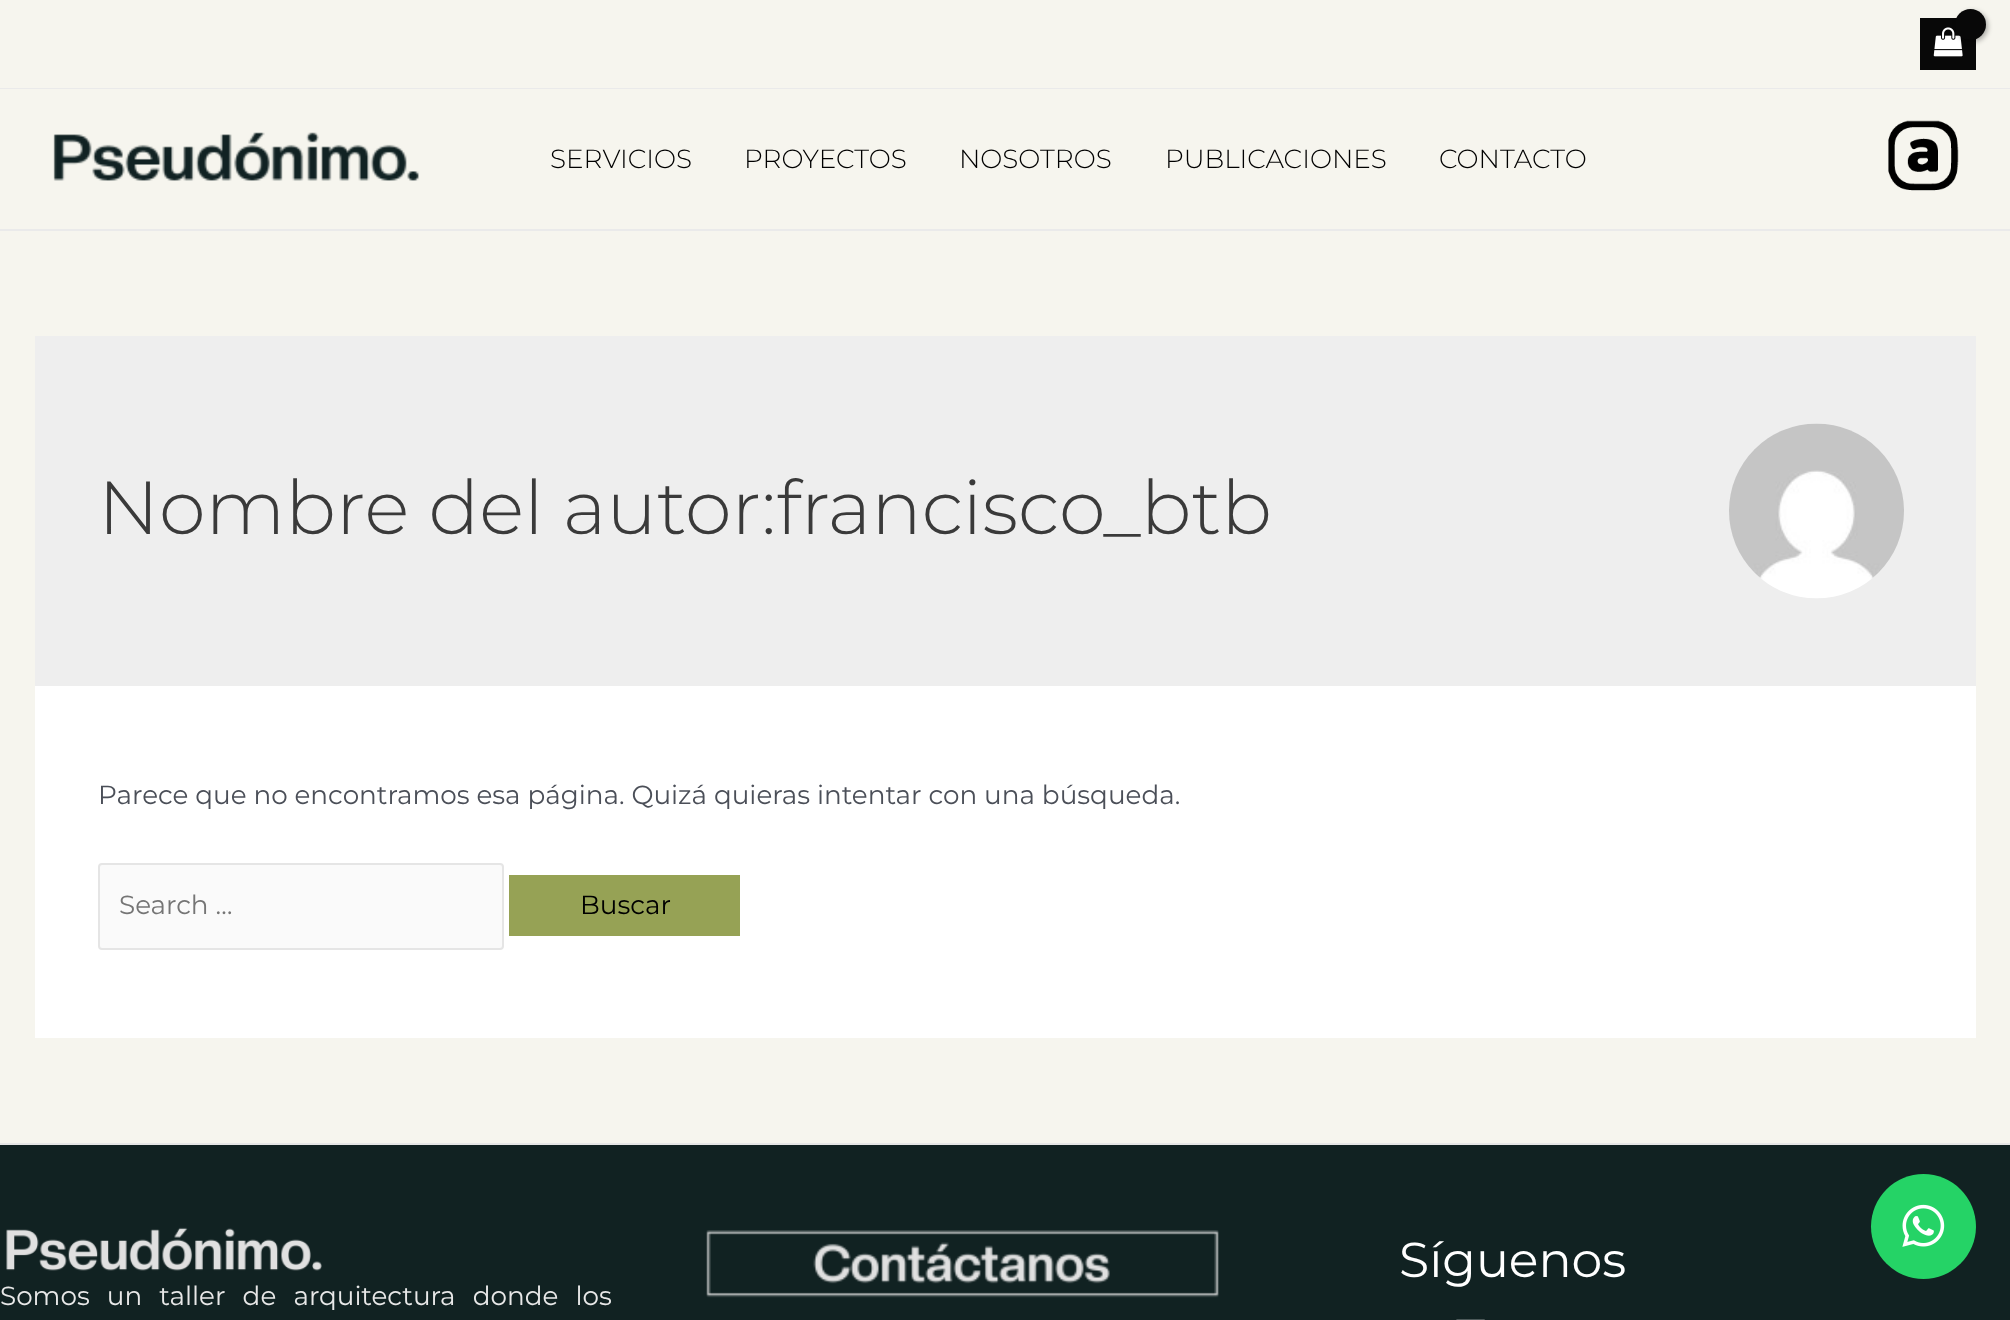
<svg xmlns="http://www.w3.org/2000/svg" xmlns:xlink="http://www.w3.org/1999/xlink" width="2010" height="1320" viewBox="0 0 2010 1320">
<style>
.cls-1{font:300 26.25px Montserrat;fill:#000000}
.cls-2{font:300 75px Montserrat;fill:#3a3a3a}
.cls-3{font:26.25px Montserrat;fill:#4b4f58}
.cls-4{font:26.25px Montserrat;fill:#757575}
.cls-5{font:26.25px Montserrat;fill:#000000}
.cls-6{font:49px Montserrat;fill:#ffffff}
.cls-7{font:26.25px Montserrat;fill:#e8e8e8}
</style>
<rect width="100%" height="100%" fill="#f6f5ee"/>
<rect fill="#eaeaea" x="0" y="88" width="2010" height="1"/>
<rect fill="#080808" x="1920" y="18" width="56" height="52"/>
<image xlink:href="image0.png" x="1933" y="27" width="30" height="30"/>
<rect fill="#000000" fill-opacity="0.3" filter="blur(2.5px)" x="1957" y="11" width="31" height="31" rx="15.5"/>
<circle fill="#080808" cx="1970.5" cy="24.5" r="15.5"/>
<rect fill="#eaeaea" x="0" y="229" width="2010" height="2"/>
<image xlink:href="image1.png" x="53" y="132" width="366" height="49"/>
<image xlink:href="image2.png" x="1888" y="120" width="71" height="71"/>
<rect fill="#eeeeee" x="35" y="336" width="1941" height="350"/>
<image xlink:href="image3.png" x="1729" y="423" width="175" height="176"/>
<rect fill="#ffffff" x="35" y="686" width="1941" height="352"/>
<rect fill="#fafafa" stroke="#e5e5e5" stroke-width="2" x="99" y="864" width="404" height="85" rx="3"/>
<rect fill="#96a255" x="509" y="875" width="231" height="61"/>
<rect fill="#112222" x="0" y="1145" width="2010" height="175"/>
<rect fill="#e6e6e6" x="0" y="1143" width="2010" height="2"/>
<image xlink:href="image4.png" x="706" y="1230" width="513" height="68"/>
<image xlink:href="image5.png" x="1456" y="1319" width="29" height="1"/>
<image xlink:href="image6.png" x="6" y="1227" width="316" height="44"/>
<circle fill="#25d366" cx="1923.5" cy="1226.5" r="52.5"/>
<image xlink:href="image7.png" x="1902" y="1204" width="43" height="43"/>
<text class="cls-1" x="550" y="168">SERVICIOS</text>
<text class="cls-1" x="744" y="168">PROYECTOS</text>
<text class="cls-1" x="959" y="168">NOSOTROS</text>
<text class="cls-1" x="1165" y="168">PUBLICACIONES</text>
<text class="cls-1" x="1439" y="168">CONTACTO</text>
<text class="cls-2" x="98" y="534">Nombre del autor:francisco_btb</text>
<text class="cls-3" x="98" y="804">Parece que no encontramos esa página. Quizá quieras intentar con una búsqueda.</text>
<text class="cls-4" x="119" y="914">Search …</text>
<text class="cls-5" x="580" y="914">Buscar</text>
<text class="cls-6" x="1399" y="1277">Síguenos</text>
<text class="cls-7" x="0" y="1305" word-spacing="10.25">Somos un taller de arquitectura donde los</text>
</svg>
